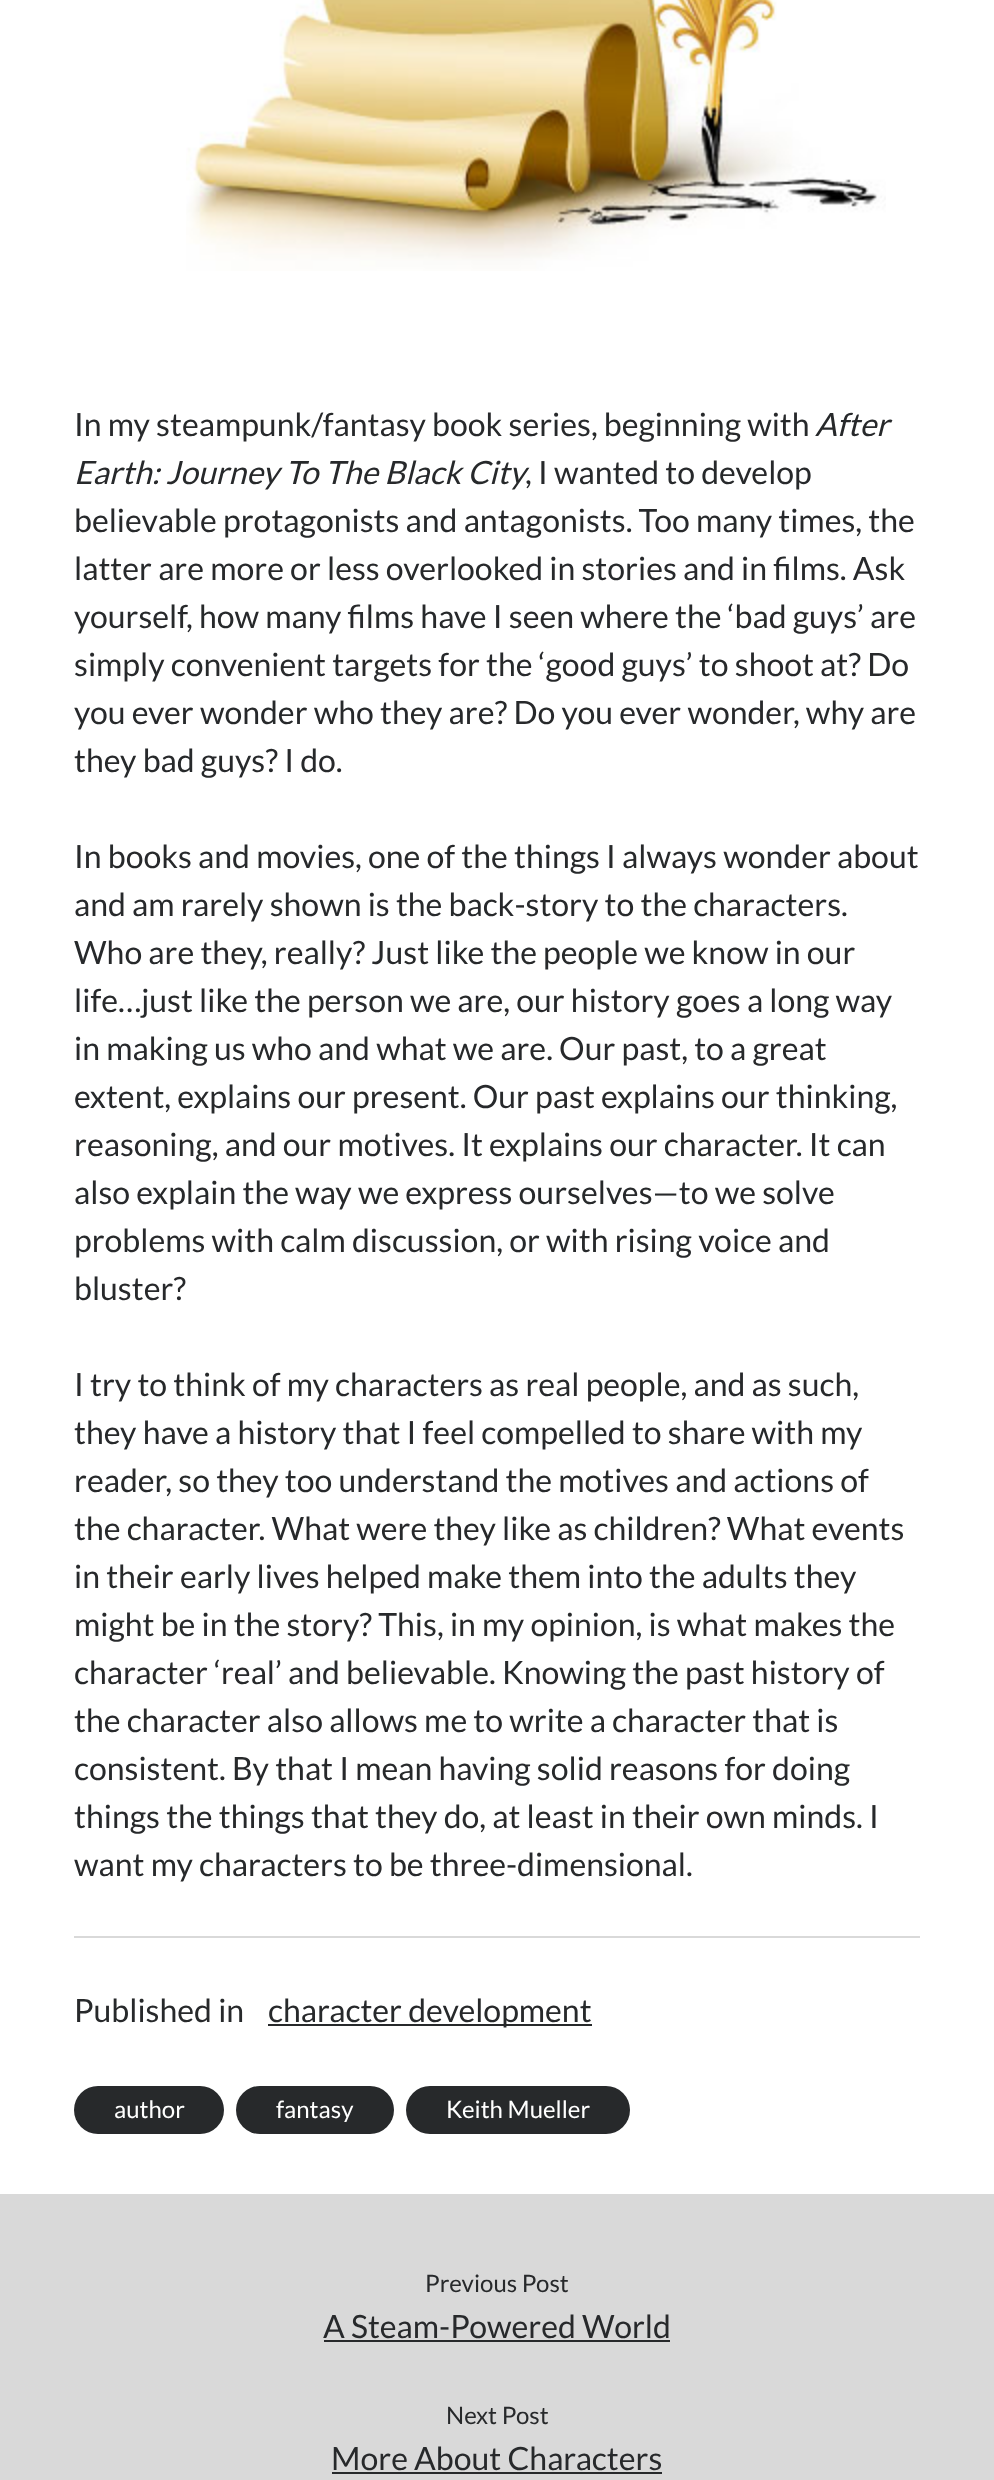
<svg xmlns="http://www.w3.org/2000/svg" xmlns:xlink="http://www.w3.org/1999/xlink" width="994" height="2480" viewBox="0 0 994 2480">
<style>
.cls-1{font:32px Lato;fill:#27292b}
.cls-2{font:italic 32px Lato;fill:#27292b}
.cls-3{font:24px Lato;fill:#ffffff}
.cls-4{font:24px Lato;fill:#27292b}
</style>
<rect width="100%" height="100%" fill="#ffffff"/>
<rect fill="#d9d9d9" x="74" y="1936" width="846" height="2"/>
<image xlink:href="image0.png" x="186" y="0" width="700" height="271"/>
<rect fill="#27292b" x="268" y="2024" width="324" height="2"/>
<rect fill="#27292b" x="74" y="2086" width="150" height="48" rx="24"/>
<rect fill="#27292b" x="236" y="2086" width="158" height="48" rx="24"/>
<rect fill="#27292b" x="406" y="2086" width="224" height="48" rx="24"/>
<rect fill="#d9d9d9" x="0" y="2194" width="994" height="286"/>
<rect fill="#27292b" x="324" y="2340" width="346" height="2"/>
<rect fill="#27292b" x="332" y="2472" width="330" height="2"/>
<text class="cls-1" x="74" y="436">In my steampunk/fantasy book series, beginning with</text>
<text class="cls-2" x="815" y="436">After</text>
<text class="cls-2" x="74" y="484">Earth: Journey To The Black City</text>
<text class="cls-1" x="525" y="484">, I wanted to develop</text>
<text class="cls-1"><tspan x="74" y="532">believable protagonists and antagonists. Too many times, the</tspan><tspan x="74" y="580">latter are more or less overlooked in stories and in films. Ask</tspan><tspan x="74" y="628">yourself, how many films have I seen where the ‘bad guys’ are</tspan><tspan x="74" y="676">simply convenient targets for the ‘good guys’ to shoot at? Do</tspan><tspan x="74" y="724">you ever wonder who they are? Do you ever wonder, why are</tspan><tspan x="74" y="772">they bad guys? I do.</tspan></text>
<text class="cls-1"><tspan x="74" y="868">In books and movies, one of the things I always wonder about</tspan><tspan x="74" y="916">and am rarely shown is the back-story to the characters.</tspan><tspan x="74" y="964">Who are they, really? Just like the people we know in our</tspan><tspan x="74" y="1012">life…just like the person we are, our history goes a long way</tspan><tspan x="74" y="1060">in making us who and what we are. Our past, to a great</tspan><tspan x="74" y="1108">extent, explains our present. Our past explains our thinking,</tspan><tspan x="74" y="1156">reasoning, and our motives. It explains our character. It can</tspan><tspan x="74" y="1204">also explain the way we express ourselves—to we solve</tspan><tspan x="74" y="1252">problems with calm discussion, or with rising voice and</tspan><tspan x="74" y="1300">bluster?</tspan></text>
<text class="cls-1"><tspan x="74" y="1396">I try to think of my characters as real people, and as such,</tspan><tspan x="74" y="1444">they have a history that I feel compelled to share with my</tspan><tspan x="74" y="1492">reader, so they too understand the motives and actions of</tspan><tspan x="74" y="1540">the character. What were they like as children? What events</tspan><tspan x="74" y="1588">in their early lives helped make them into the adults they</tspan><tspan x="74" y="1636">might be in the story? This, in my opinion, is what makes the</tspan><tspan x="74" y="1684">character ‘real’ and believable. Knowing the past history of</tspan><tspan x="74" y="1732">the character also allows me to write a character that is</tspan><tspan x="74" y="1780">consistent. By that I mean having solid reasons for doing</tspan><tspan x="74" y="1828">things the things that they do, at least in their own minds. I</tspan><tspan x="74" y="1876">want my characters to be three-dimensional.</tspan></text>
<text class="cls-1" x="74" y="2022">Published in</text>
<text class="cls-1" x="268" y="2022">character development</text>
<text class="cls-3" x="114" y="2118">author</text>
<text class="cls-3" x="276" y="2118">fantasy</text>
<text class="cls-3" x="446" y="2118">Keith Mueller</text>
<text class="cls-4" x="425" y="2292">Previous Post</text>
<text class="cls-1" x="323" y="2338">A Steam-Powered World</text>
<text class="cls-4" x="446" y="2424">Next Post</text>
<text class="cls-1" x="331" y="2470">More About Characters</text>
</svg>
